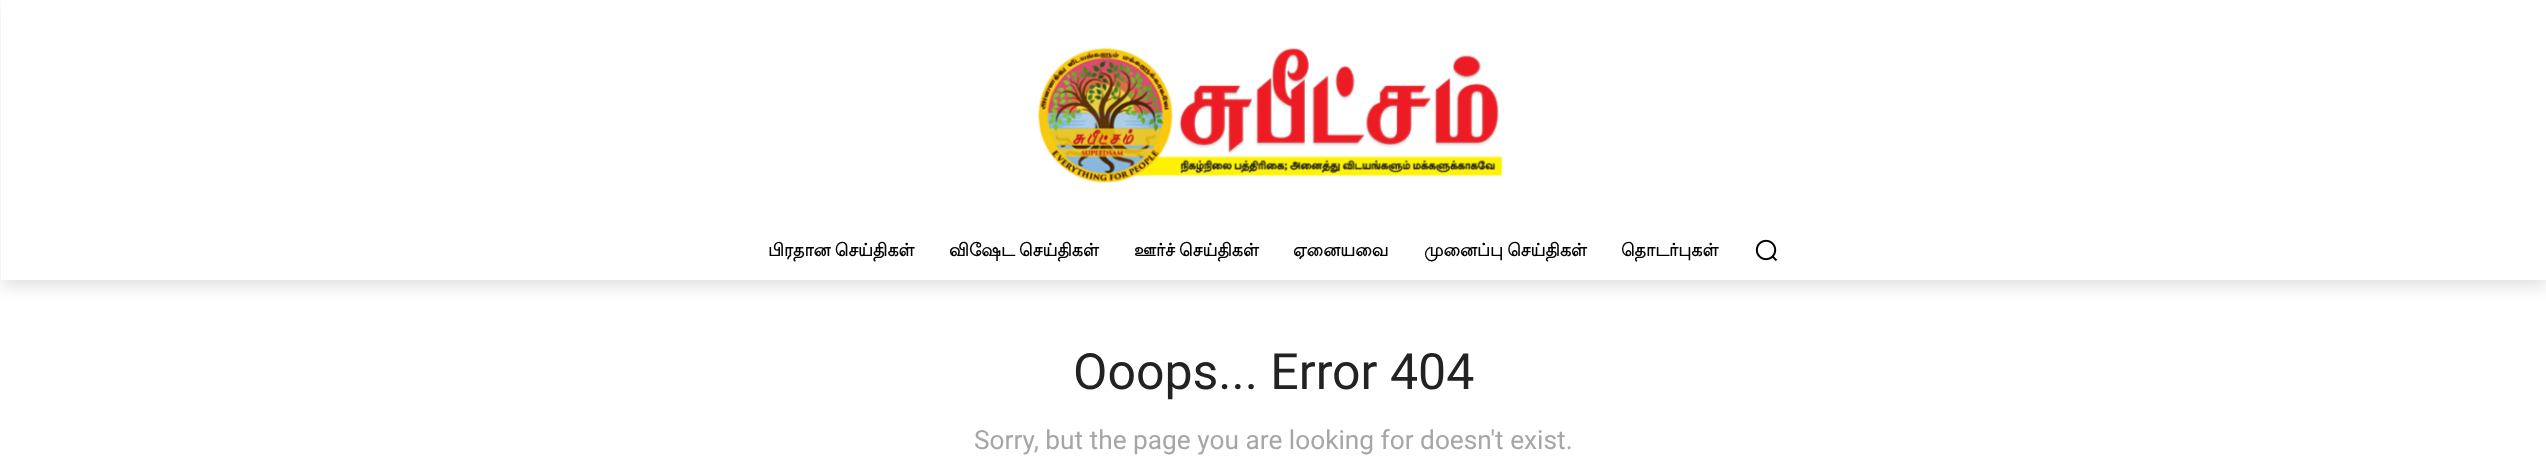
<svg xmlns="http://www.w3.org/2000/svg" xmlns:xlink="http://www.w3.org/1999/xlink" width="2546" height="476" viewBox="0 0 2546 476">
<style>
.cls-1{font:bold 17.5px Lohit Tamil;fill:#000000}
.cls-2{font:50px Roboto;fill:#222222}
.cls-3{font:26.25px Roboto;fill:#a6a6a6}
</style>
<defs>
<clipPath id="clip1"><path d="M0 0H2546V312H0ZM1 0H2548V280H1Z" clip-rule="evenodd"/></clipPath>
</defs>
<rect width="100%" height="100%" fill="#ffffff"/>
<image xlink:href="image0.png" x="1037" y="47" width="466" height="136"/>
<g clip-path="url(#clip1)">
<rect fill="#000000" fill-opacity="0.1" filter="blur(7.5px)" x="1" y="8" width="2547" height="280"/>
</g>
<image xlink:href="image1.png" x="1755" y="239" width="23" height="22"/>
<text class="cls-1" x="768" y="256" word-spacing="-1">பிரதான செய்திகள்</text>
<text class="cls-1" x="949" y="256" word-spacing="-1">விஷேட செய்திகள்</text>
<text class="cls-1" x="1134" y="256" word-spacing="-1">ஊர்ச் செய்திகள்</text>
<text class="cls-1" x="1293" y="256">ஏனையவை</text>
<text class="cls-1" x="1424" y="256" word-spacing="-1">முனைப்பு செய்திகள்</text>
<text class="cls-1" x="1621" y="256">தொடர்புகள்</text>
<text class="cls-2" x="1073" y="389">Ooops... Error 404</text>
<text class="cls-3" x="974" y="449">Sorry, but the page you are looking for doesn't exist.</text>
</svg>
